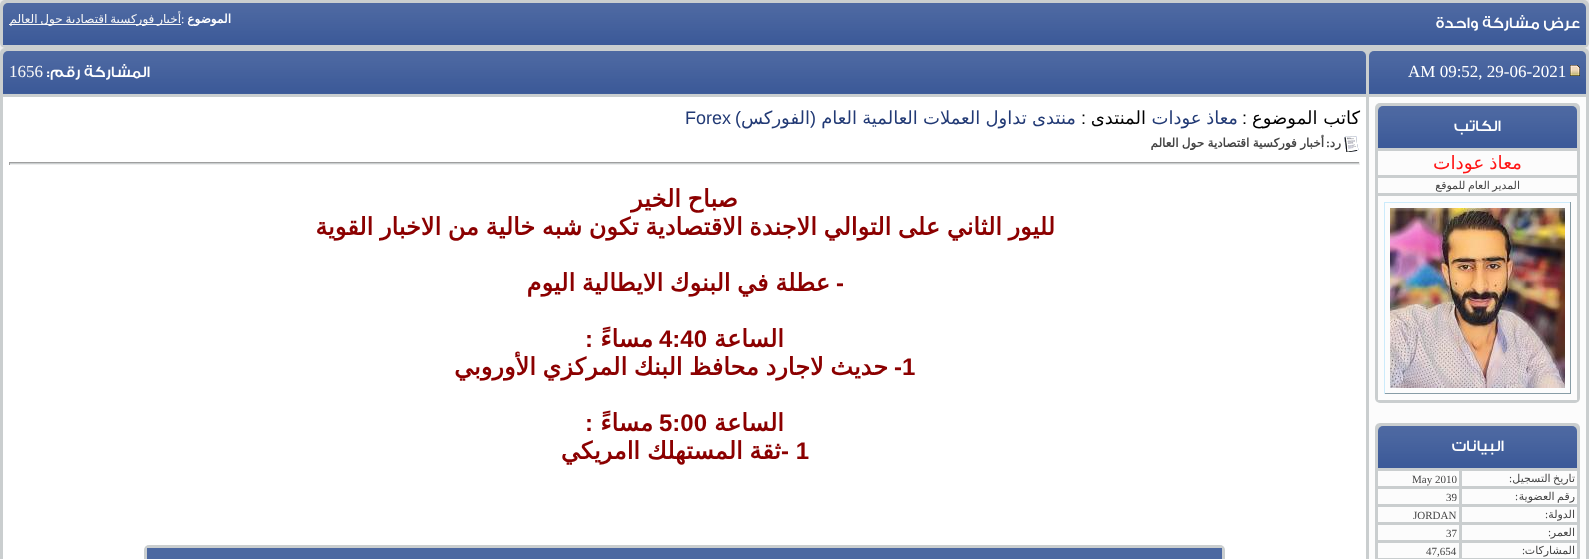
<svg xmlns="http://www.w3.org/2000/svg" xmlns:xlink="http://www.w3.org/1999/xlink" width="1589" height="559" viewBox="0 0 1589 559">
<style>
.cls-1{font:500 16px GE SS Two;direction:rtl;fill:#ffffff}
.cls-2{font:bold 12px DejaVu Sans;direction:rtl;fill:#ffffff}
.cls-3{font:12px Liberation Serif;fill:#ffffff}
.cls-4{font:12px DejaVu Sans;direction:rtl;fill:#f6f6f6}
.cls-5{font:17px Liberation Serif;fill:#ffffff}
.cls-6{font:17px Liberation Serif;fill:#f6f6f6}
.cls-7{font:18.5px DejaVu Sans;direction:rtl;fill:#ff1515}
.cls-8{font:11px DejaVu Sans;direction:rtl;fill:#444444}
.cls-9{font:11px Liberation Serif;direction:rtl;fill:#444444}
.cls-10{font:11px Liberation Serif;fill:#444444}
.cls-11{font:18px DejaVu Sans;direction:rtl;fill:#000000}
.cls-12{font:18px Liberation Sans;direction:rtl;fill:#000000}
.cls-13{font:18px DejaVu Sans;direction:rtl;fill:#223a75}
.cls-14{font:18px Liberation Sans;direction:rtl;fill:#223a75}
.cls-15{font:18px Liberation Sans;fill:#223a75}
.cls-16{font:bold 12px DejaVu Sans;direction:rtl;fill:#444444}
.cls-17{font:bold 12px Liberation Serif;direction:rtl;fill:#444444}
.cls-18{font:bold 24px DejaVu Sans;direction:rtl;fill:#8b0000}
.cls-19{font:bold 24px Liberation Sans;direction:rtl;fill:#8b0000}
.cls-20{font:bold 24px Liberation Sans;fill:#8b0000}
</style>
<rect width="100%" height="100%" fill="#ececec"/>
<rect fill="#cacecf" x="0" y="0" width="1589" height="48" rx="5"/>
<image xlink:href="image0.png" x="3" y="3" width="1583" height="42"/>
<rect fill="#f6f6f6" x="9" y="24" width="172" height="1"/>
<rect fill="#cacecf" x="0" y="48" width="1589" height="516" rx="5"/>
<image xlink:href="image1.png" x="1369" y="51" width="217" height="43"/>
<image xlink:href="image2.png" x="1570" y="65" width="10" height="11"/>
<image xlink:href="image3.png" x="3" y="51" width="1363" height="43"/>
<rect fill="#fcfcfc" x="1369" y="97" width="217" height="462"/>
<rect fill="#cacecf" x="1375" y="103" width="205" height="300" rx="5"/>
<image xlink:href="image4.png" x="1378" y="106" width="199" height="42"/>
<rect fill="#fcfcfc" x="1378" y="151" width="199" height="24"/>
<rect fill="#fcfcfc" x="1378" y="178" width="199" height="15"/>
<rect fill="#fcfcfc" x="1378" y="196" width="199" height="204"/>
<rect fill="#ccebfb" x="1384" y="202" width="187" height="1"/>
<rect fill="#889da7" x="1570" y="202" width="1" height="192"/>
<image xlink:href="image5.png" x="1390" y="208" width="175" height="180"/>
<rect fill="#889da7" x="1384" y="393" width="187" height="1"/>
<rect fill="#ccebfb" x="1384" y="202" width="1" height="192"/>
<rect fill="#cacecf" x="1375" y="423" width="205" height="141" rx="5"/>
<image xlink:href="image4.png" x="1378" y="426" width="199" height="42"/>
<rect fill="#fcfcfc" x="1462" y="471" width="115" height="15"/>
<rect fill="#fcfcfc" x="1378" y="471" width="81" height="15"/>
<rect fill="#fcfcfc" x="1462" y="489" width="115" height="15"/>
<rect fill="#fcfcfc" x="1378" y="489" width="81" height="15"/>
<rect fill="#fcfcfc" x="1462" y="507" width="115" height="15"/>
<rect fill="#fcfcfc" x="1378" y="507" width="81" height="15"/>
<rect fill="#fcfcfc" x="1462" y="525" width="115" height="15"/>
<rect fill="#fcfcfc" x="1378" y="525" width="81" height="15"/>
<rect fill="#fcfcfc" x="1462" y="543" width="115" height="15"/>
<rect fill="#fcfcfc" x="1378" y="543" width="81" height="15"/>
<rect fill="#ffffff" x="3" y="97" width="1363" height="462"/>
<image xlink:href="image6.png" x="1344" y="136" width="15" height="16"/>
<rect fill="#cacecf" x="9" y="163" width="1351" height="1"/>
<rect fill="#9f9f9f" x="9" y="162" width="1351" height="1"/>
<rect fill="#eeeeee" x="1359" y="162" width="1" height="3"/>
<rect fill="#eeeeee" x="9" y="164" width="1351" height="1"/>
<rect fill="#9f9f9f" x="9" y="162" width="1" height="3"/>
<rect fill="#cacecf" x="144" y="545" width="1081" height="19" rx="5"/>
<rect fill="#4c68a1" x="147" y="548" width="1075" height="11"/>
<text class="cls-1" x="1580" y="28">عرض مشاركة واحدة</text>
<text class="cls-2" x="231" y="23">الموضوع</text>
<text class="cls-3" x="181" y="23">:</text>
<text class="cls-4" x="181" y="23" word-spacing="-1">أخبار فوركسية اقتصادية حول العالم</text>
<text class="cls-5" x="1408" y="77">AM 09:52, 29-06-2021</text>
<text class="cls-1" x="150" y="77">المشاركة رقم:</text>
<text class="cls-6" x="9" y="77">1656</text>
<text class="cls-1" x="1501" y="131">الكاتب</text>
<text class="cls-7" x="1522" y="169" word-spacing="-1">معاذ عودات</text>
<text class="cls-8" x="1520" y="189" word-spacing="-1">المدير العام للموقع</text>
<text class="cls-1" x="1504" y="451">البيانات</text>
<text class="cls-8" x="1575" y="482" word-spacing="-1">تاريخ التسجيل</text>
<text class="cls-9" x="1512" y="482">:</text>
<text class="cls-10" x="1412" y="483">May 2010</text>
<text class="cls-8" x="1575" y="500" word-spacing="-1">رقم العضوية</text>
<text class="cls-9" x="1518" y="500">:</text>
<text class="cls-10" x="1446" y="501">39</text>
<text class="cls-8" x="1575" y="518">الدولة</text>
<text class="cls-9" x="1548" y="518">:</text>
<text class="cls-10" x="1413" y="519">JORDAN</text>
<text class="cls-8" x="1575" y="536">العمر</text>
<text class="cls-9" x="1551" y="536">:</text>
<text class="cls-10" x="1446" y="537">37</text>
<text class="cls-8" x="1575" y="554">المشاركات</text>
<text class="cls-9" x="1525" y="554">:</text>
<text class="cls-10" x="1426" y="555">47,654</text>
<text class="cls-11" x="1360" y="124">كاتب الموضوع</text>
<text class="cls-12" x="1247" y="124">:</text>
<text class="cls-13" x="1238" y="124" word-spacing="-1">معاذ عودات</text>
<text class="cls-11" x="1146" y="124">المنتدى</text>
<text class="cls-12" x="1086" y="124">:</text>
<text class="cls-13" x="1076" y="124" word-spacing="-0.5">منتدى تداول العملات العالمية العام</text>
<text class="cls-14" x="816" y="124">(</text>
<text class="cls-13" x="810" y="124">الفوركس</text>
<text class="cls-14" x="741" y="124">)</text>
<text class="cls-15" x="685" y="124">Forex</text>
<text class="cls-16" x="1341" y="147">رد</text>
<text class="cls-17" x="1330" y="147">:</text>
<text class="cls-16" x="1324" y="147" word-spacing="-0.5">أخبار فوركسية اقتصادية حول العالم</text>
<text class="cls-18" x="738" y="207" word-spacing="-1">صباح الخير</text>
<text class="cls-18" x="1055" y="235" word-spacing="-1">لليور الثاني على التوالي الاجندة الاقتصادية تكون شبه خالية من الاخبار القوية</text>
<text class="cls-19" x="844" y="291">-</text>
<text class="cls-18" x="830" y="291" word-spacing="-1">عطلة في البنوك الايطالية اليوم</text>
<text class="cls-18" x="784" y="347">الساعة</text>
<text class="cls-20" x="659" y="347">4:40</text>
<text class="cls-18" x="653" y="347">مساءً</text>
<text class="cls-19" x="593" y="347">:</text>
<text class="cls-20" x="902" y="375">1</text>
<text class="cls-19" x="902" y="375">-</text>
<text class="cls-18" x="888" y="375" word-spacing="-1">حديث لاجارد محافظ البنك المركزي الأوروبي</text>
<text class="cls-18" x="784" y="431">الساعة</text>
<text class="cls-20" x="659" y="431">5:00</text>
<text class="cls-18" x="653" y="431">مساءً</text>
<text class="cls-19" x="593" y="431">:</text>
<text class="cls-20" x="781" y="459">- 1</text>
<text class="cls-18" x="781" y="459" word-spacing="-1">ثقة المستهلك</text>
<text class="cls-18" x="640" y="459">اامريكي</text>
</svg>
